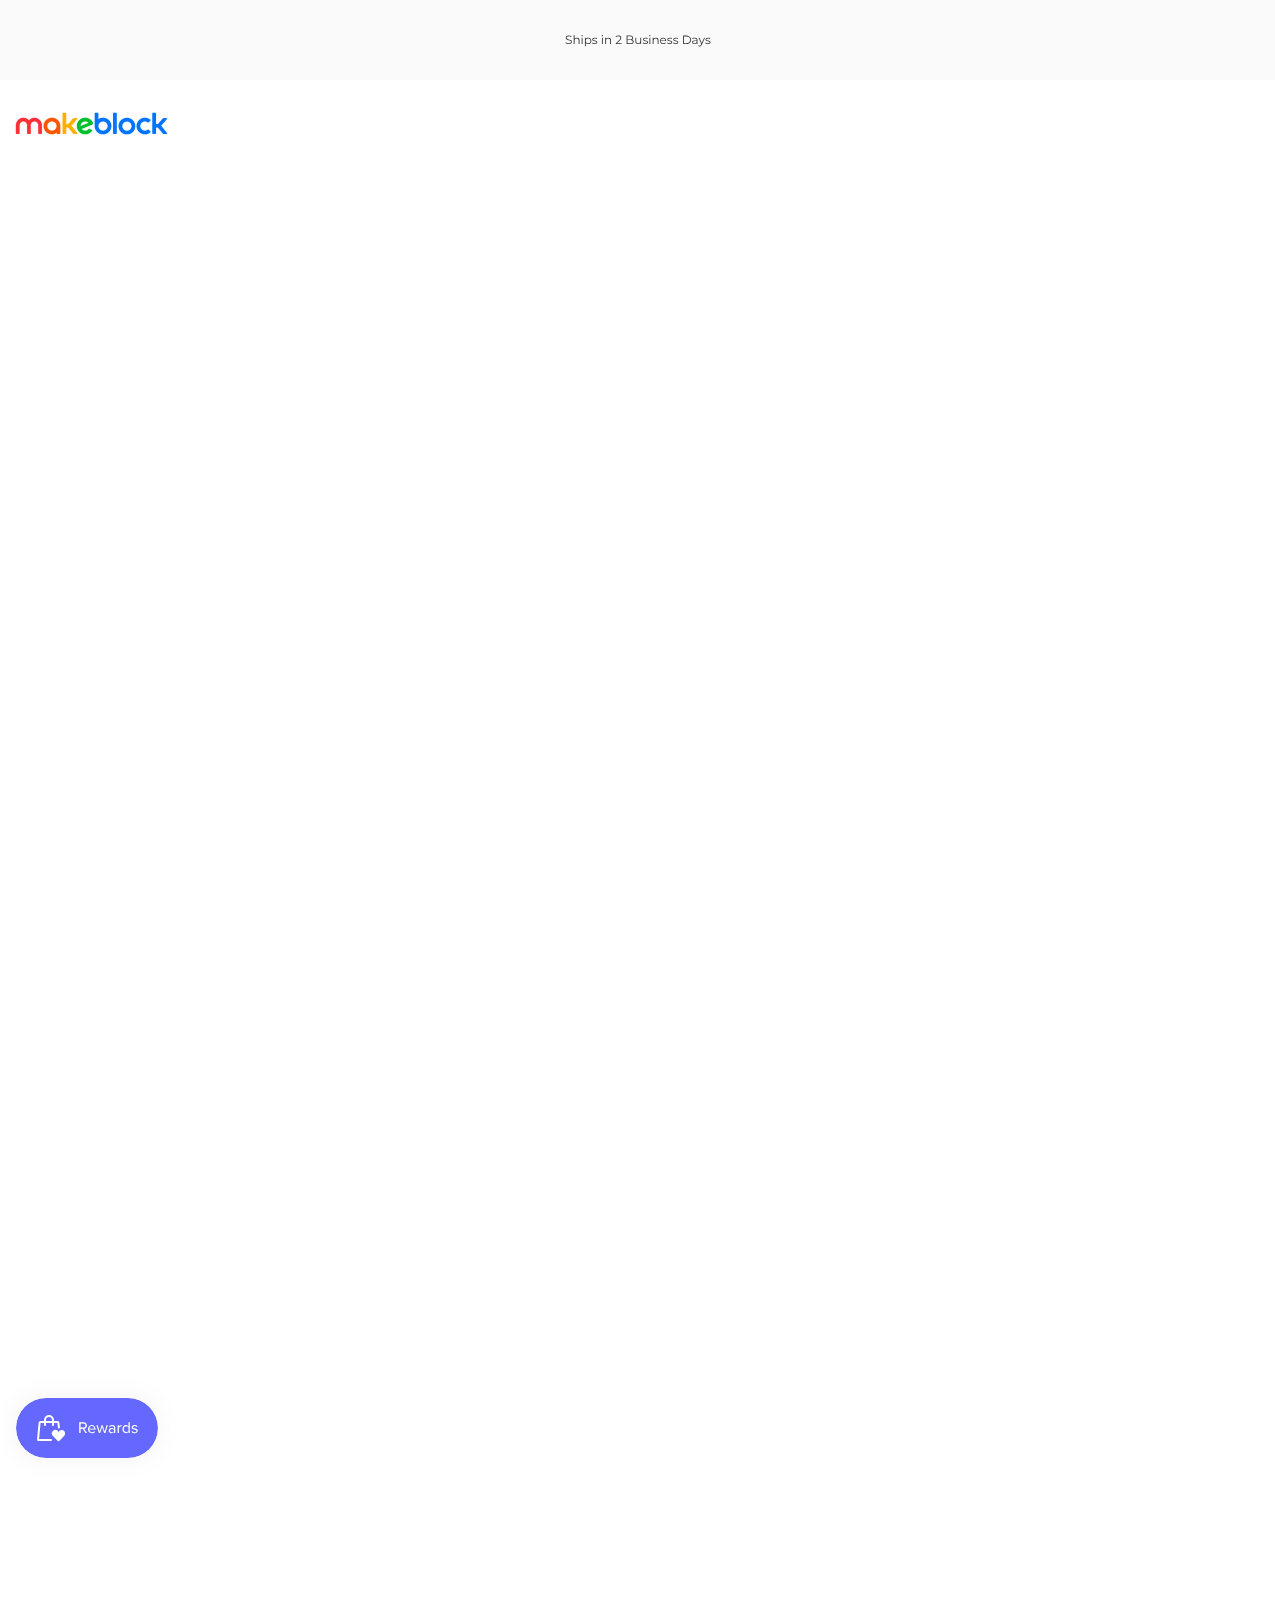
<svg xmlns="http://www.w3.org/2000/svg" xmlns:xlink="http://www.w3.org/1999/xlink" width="1275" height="1608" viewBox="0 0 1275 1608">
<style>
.cls-1{font:12px Montserrat;fill:#333333}
</style>
<rect width="100%" height="100%" fill="#ffffff"/>
<rect fill="#fafafa" x="0" y="0" width="1275" height="80"/>
<image xlink:href="image0.png" x="15" y="112" width="153" height="23"/>
<rect fill="#000000" fill-opacity="0.05" filter="blur(12.5px)" x="16" y="1398" width="142" height="60" rx="30"/>
<image xlink:href="image1.png" x="16" y="1398" width="142" height="60"/>
<text class="cls-1" x="565" y="44">Ships in 2 Business Days</text>
</svg>
